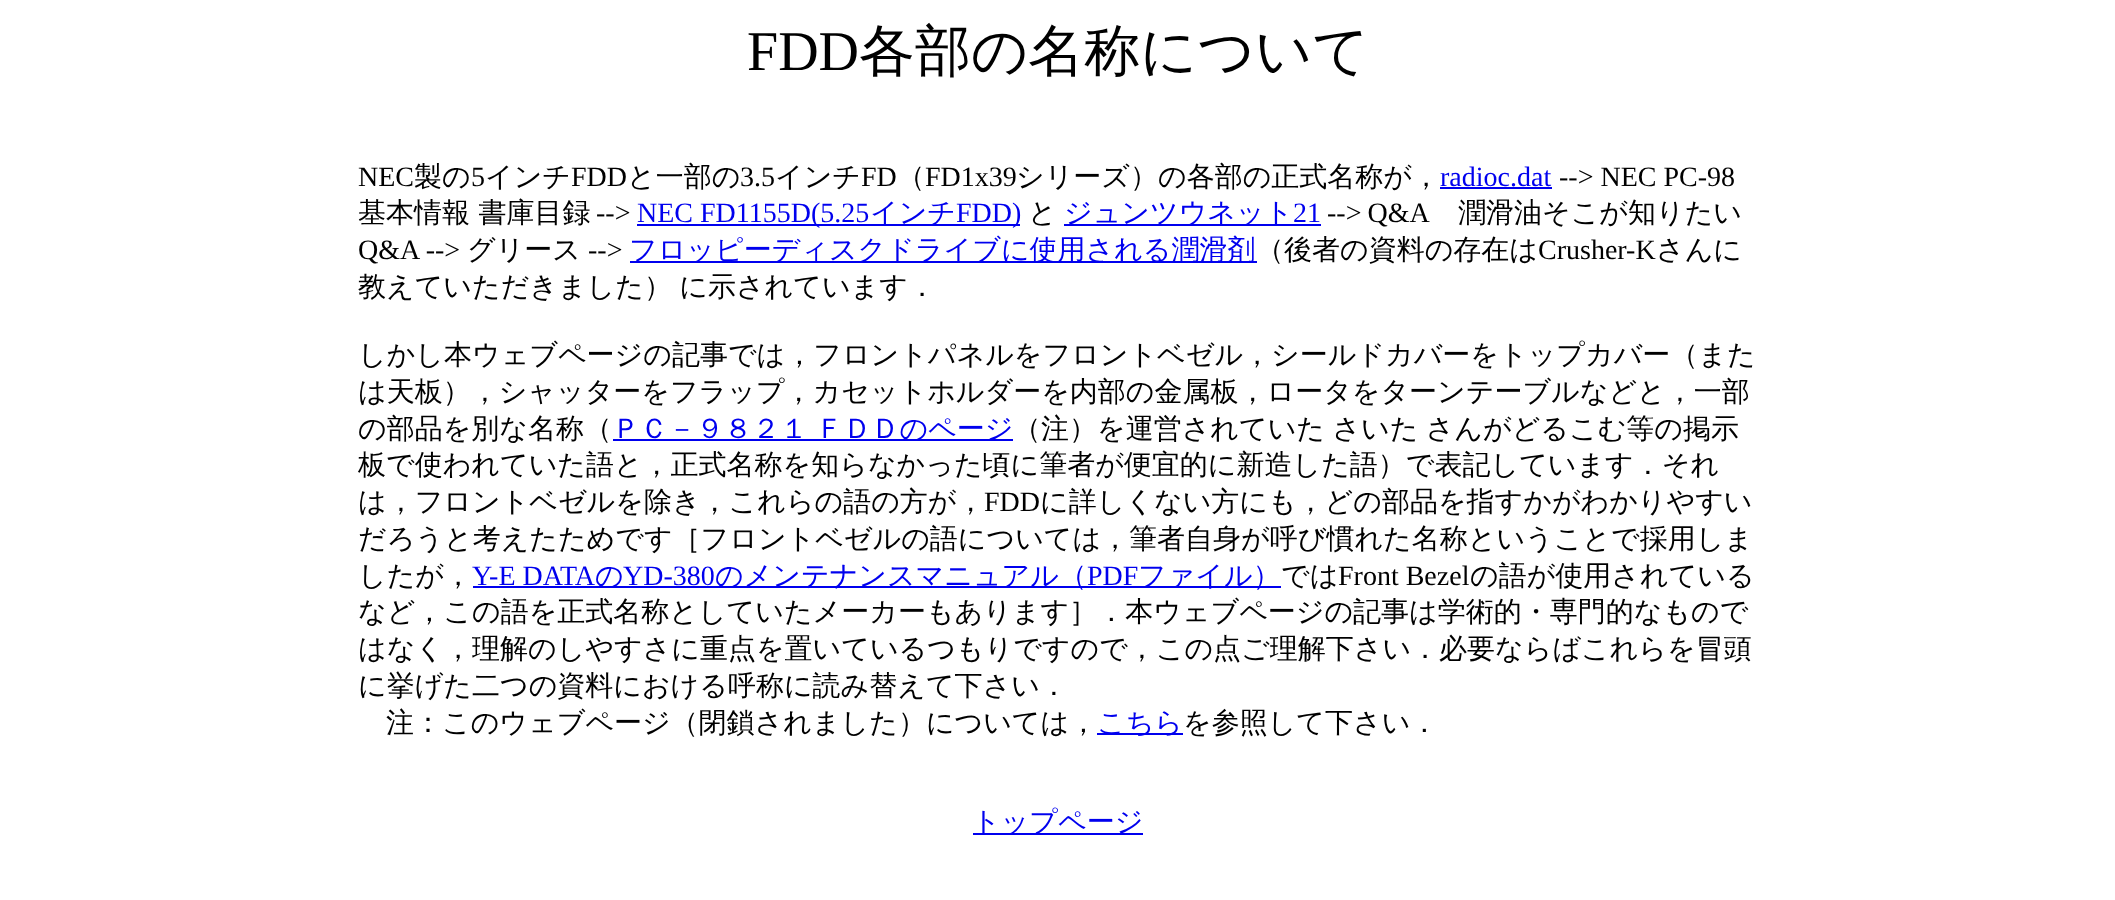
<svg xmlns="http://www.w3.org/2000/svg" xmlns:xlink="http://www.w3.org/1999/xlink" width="2115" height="900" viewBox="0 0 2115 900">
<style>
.cls-1{font:56px Liberation Serif;fill:#000000}
.cls-2{font:500 56px WenQuanYi Zen Hei;fill:#000000}
.cls-3{font:28px Liberation Serif;fill:#000000}
.cls-4{font:500 28px WenQuanYi Zen Hei;fill:#000000}
.cls-5{font:28px Liberation Serif;fill:#0000ee}
.cls-6{font:500 28px WenQuanYi Zen Hei;fill:#0000ee}
</style>
<rect width="100%" height="100%" fill="#ffffff"/>
<rect fill="#0000ee" x="1440" y="187" width="112" height="2"/>
<rect fill="#0000ee" x="637" y="224" width="383" height="2"/>
<rect fill="#0000ee" x="1064" y="224" width="257" height="2"/>
<rect fill="#0000ee" x="630" y="261" width="627" height="2"/>
<rect fill="#0000ee" x="613" y="439" width="400" height="2"/>
<rect fill="#0000ee" x="473" y="586" width="808" height="2"/>
<rect fill="#0000ee" x="1097" y="733" width="86" height="2"/>
<rect fill="#0000ee" x="973" y="833" width="170" height="2"/>
<text class="cls-1" x="747" y="70">FDD</text>
<text class="cls-2" x="859" y="70">各部の名称について</text>
<text class="cls-3" x="358" y="186">NEC</text>
<text class="cls-4" x="414" y="186">製の</text>
<text class="cls-3" x="471" y="186">5</text>
<text class="cls-4" x="485" y="186">インチ</text>
<text class="cls-3" x="571" y="186">FDD</text>
<text class="cls-4" x="627" y="186">と一部の</text>
<text class="cls-3" x="740" y="186">3.5</text>
<text class="cls-4" x="775" y="186">インチ</text>
<text class="cls-3" x="861" y="186">FD</text>
<text class="cls-4" x="897" y="186">（</text>
<text class="cls-3" x="925" y="186">FD1x39</text>
<text class="cls-4" x="1016" y="186">シリーズ）の各部の正式名称が，</text>
<text class="cls-5" x="1440" y="186">radioc.dat</text>
<text class="cls-3" x="1559" y="186">--&gt; NEC PC-98</text>
<text class="cls-4" x="358" y="222">基本情報 書庫目録</text>
<text class="cls-3" x="596" y="222">--&gt;</text>
<text class="cls-5" x="637" y="222">NEC FD1155D(5.25</text>
<text class="cls-6" x="870" y="222">インチ</text>
<text class="cls-5" x="956" y="222">FDD)</text>
<text class="cls-4" x="1028" y="222">と</text>
<text class="cls-6" x="1064" y="222">ジュンツウネット</text>
<text class="cls-5" x="1293" y="222">21</text>
<text class="cls-3" x="1327" y="222" word-spacing="-1">--&gt; Q&amp;A</text>
<text class="cls-4" x="1458" y="222">潤滑油そこが知りたい</text>
<text class="cls-3" x="358" y="259">Q&amp;A --&gt;</text>
<text class="cls-4" x="467" y="259">グリース</text>
<text class="cls-3" x="588" y="259">--&gt;</text>
<text class="cls-6" x="629" y="259">フロッピーディスクドライブに使用される潤滑剤</text>
<text class="cls-4" x="1256" y="259">（後者の資料の存在は</text>
<text class="cls-3" x="1538" y="259">Crusher-K</text>
<text class="cls-4" x="1656" y="259">さんに</text>
<text class="cls-4" x="358" y="296" word-spacing="-1">教えていただきました） に示されています．</text>
<text class="cls-4"><tspan x="358" y="364">しかし本ウェブページの記事では，フロントパネルをフロントベゼル，シールドカバーをトップカバー（また</tspan><tspan x="358" y="401">は天板），シャッターをフラップ，カセットホルダーを内部の金属板，ロータをターンテーブルなどと，一部</tspan><tspan x="358" y="438">の部品を別な名称（</tspan></text>
<text class="cls-6" x="612" y="438" word-spacing="-1">ＰＣ－９８２１ ＦＤＤのページ</text>
<text class="cls-4" x="1013" y="438" word-spacing="-1">（注）を運営されていた さいた さんがどるこむ等の掲示</text>
<text class="cls-4"><tspan x="358" y="474">板で使われていた語と，正式名称を知らなかった頃に筆者が便宜的に新造した語）で表記しています．それ</tspan><tspan x="358" y="511">は，フロントベゼルを除き，これらの語の方が，</tspan></text>
<text class="cls-3" x="984" y="511">FDD</text>
<text class="cls-4" x="1040" y="511">に詳しくない方にも，どの部品を指すかがわかりやすい</text>
<text class="cls-4"><tspan x="358" y="548">だろうと考えたためです［フロントベゼルの語については，筆者自身が呼び慣れた名称ということで採用しま</tspan><tspan x="358" y="585">したが，</tspan></text>
<text class="cls-5" x="472" y="585">Y-E DATA</text>
<text class="cls-6" x="595" y="585">の</text>
<text class="cls-5" x="623" y="585">YD-380</text>
<text class="cls-6" x="715" y="585">のメンテナンスマニュアル（</text>
<text class="cls-5" x="1087" y="585">PDF</text>
<text class="cls-6" x="1138" y="585">ファイル）</text>
<text class="cls-4" x="1281" y="585">では</text>
<text class="cls-3" x="1338" y="585">Front Bezel</text>
<text class="cls-4" x="1470" y="585">の語が使用されている</text>
<text class="cls-4"><tspan x="358" y="621">など，この語を正式名称としていたメーカーもあります］．本ウェブページの記事は学術的・専門的なもので</tspan><tspan x="358" y="658">はなく，理解のしやすさに重点を置いているつもりですので，この点ご理解下さい．必要ならばこれらを冒頭</tspan><tspan x="358" y="695">に挙げた二つの資料における呼称に読み替えて下さい．</tspan></text>
<text class="cls-4" x="386" y="732">注：このウェブページ（閉鎖されました）については，</text>
<text class="cls-6" x="1097" y="732">こちら</text>
<text class="cls-4" x="1183" y="732">を参照して下さい．</text>
<text class="cls-6" x="972" y="831">トップページ</text>
</svg>
